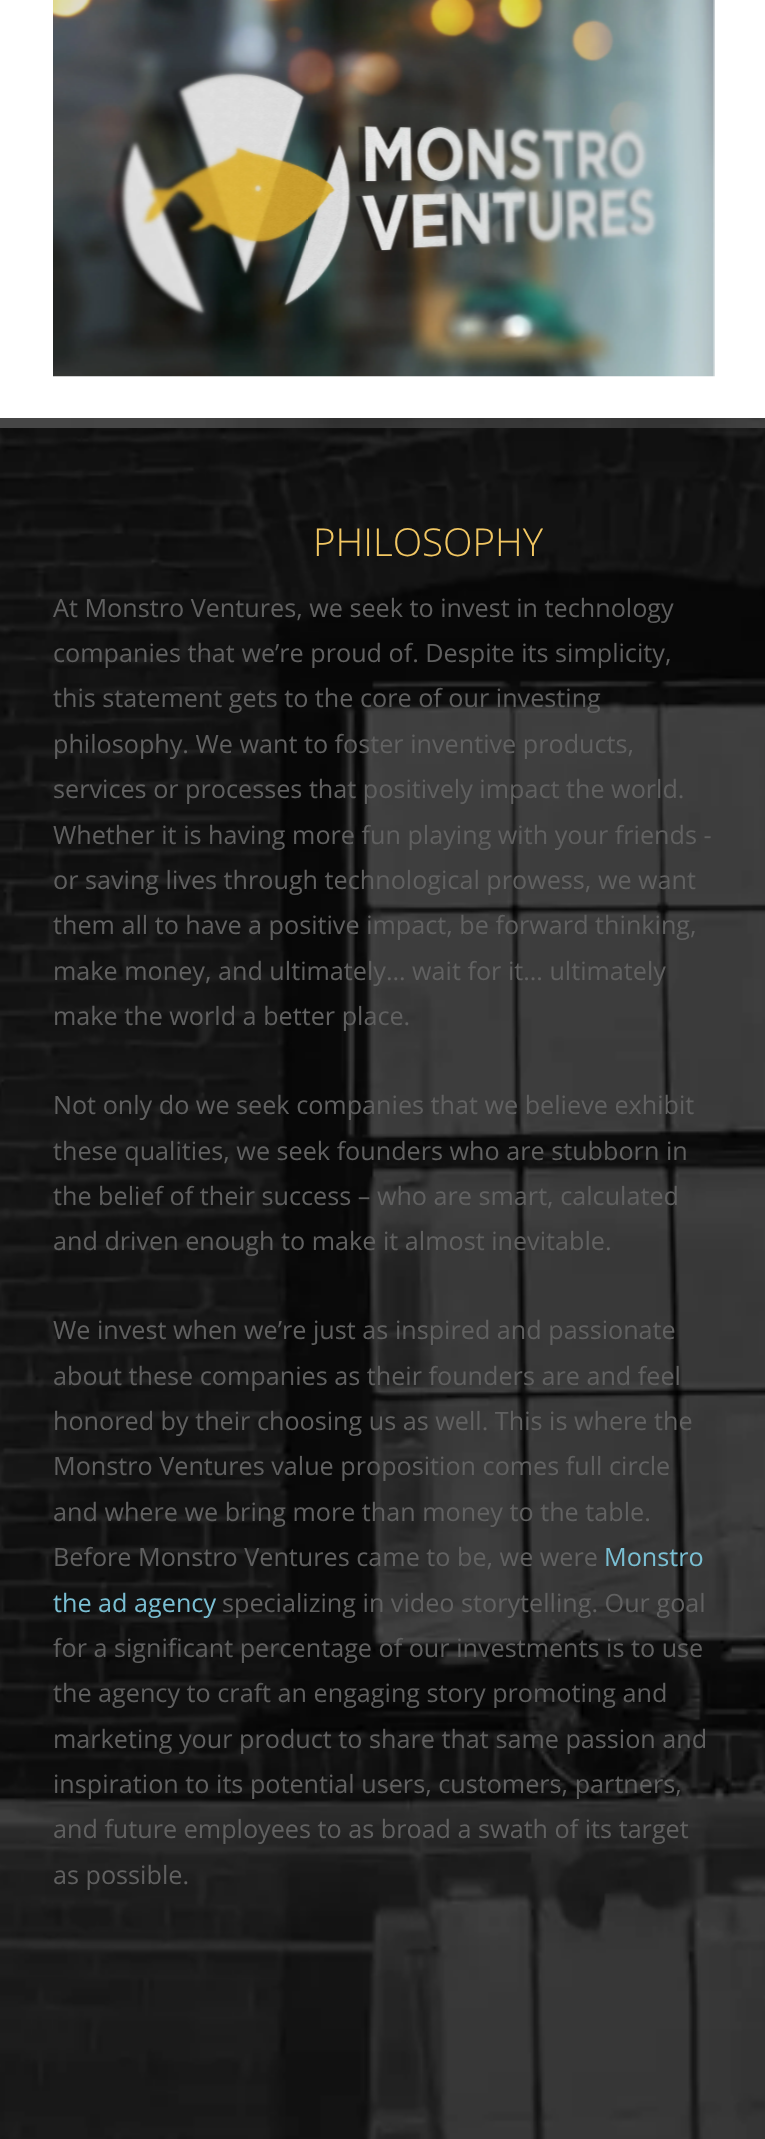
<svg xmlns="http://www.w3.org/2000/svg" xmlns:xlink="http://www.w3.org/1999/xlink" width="765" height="2139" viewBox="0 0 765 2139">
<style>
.cls-1{font:300 38.5px Open Sans;fill:#f2c763}
.cls-2{font:25.2px Open Sans;fill:#606060}
.cls-3{font:25.2px Open Sans;fill:#7abfd3}
</style>
<rect width="100%" height="100%" fill="#ffffff"/>
<image xlink:href="image0.png" x="53" y="0" width="662" height="377"/>
<image xlink:href="image1.png" x="0" y="418" width="765" height="10"/>
<image xlink:href="image2.png" x="0" y="428" width="765" height="1711"/>
<text class="cls-1" x="313" y="556">PHILOSOPHY</text>
<text class="cls-2"><tspan x="53" y="617">At Monstro Ventures, we seek to invest in technology</tspan><tspan x="53" y="662">companies that we’re proud of. Despite its simplicity,</tspan><tspan x="53" y="707">this statement gets to the core of our investing</tspan><tspan x="53" y="753">philosophy. We want to foster inventive products,</tspan><tspan x="53" y="798">services or processes that positively impact the world.</tspan><tspan x="53" y="844">Whether it is having more fun playing with your friends -</tspan><tspan x="53" y="889">or saving lives through technological prowess, we want</tspan><tspan x="53" y="934">them all to have a positive impact, be forward thinking,</tspan><tspan x="53" y="980">make money, and ultimately… wait for it… ultimately</tspan><tspan x="53" y="1025">make the world a better place.</tspan></text>
<text class="cls-2"><tspan x="53" y="1114">Not only do we seek companies that we believe exhibit</tspan><tspan x="53" y="1160">these qualities, we seek founders who are stubborn in</tspan><tspan x="53" y="1205">the belief of their success – who are smart, calculated</tspan><tspan x="53" y="1250">and driven enough to make it almost inevitable.</tspan></text>
<text class="cls-2"><tspan x="53" y="1339">We invest when we’re just as inspired and passionate</tspan><tspan x="53" y="1385">about these companies as their founders are and feel</tspan><tspan x="53" y="1430">honored by their choosing us as well. This is where the</tspan><tspan x="53" y="1475">Monstro Ventures value proposition comes full circle</tspan><tspan x="53" y="1521">and where we bring more than money to the table.</tspan><tspan x="53" y="1566">Before Monstro Ventures came to be, we were</tspan></text>
<text class="cls-3" x="604" y="1566">Monstro</text>
<text class="cls-3" x="53" y="1612">the ad agency</text>
<text class="cls-2" x="222" y="1612">specializing in video storytelling. Our goal</text>
<text class="cls-2"><tspan x="53" y="1657">for a significant percentage of our investments is to use</tspan><tspan x="53" y="1702">the agency to craft an engaging story promoting and</tspan><tspan x="53" y="1748">marketing your product to share that same passion and</tspan><tspan x="53" y="1793">inspiration to its potential users, customers, partners,</tspan><tspan x="53" y="1838">and future employees to as broad a swath of its target</tspan><tspan x="53" y="1884">as possible.</tspan></text>
</svg>
